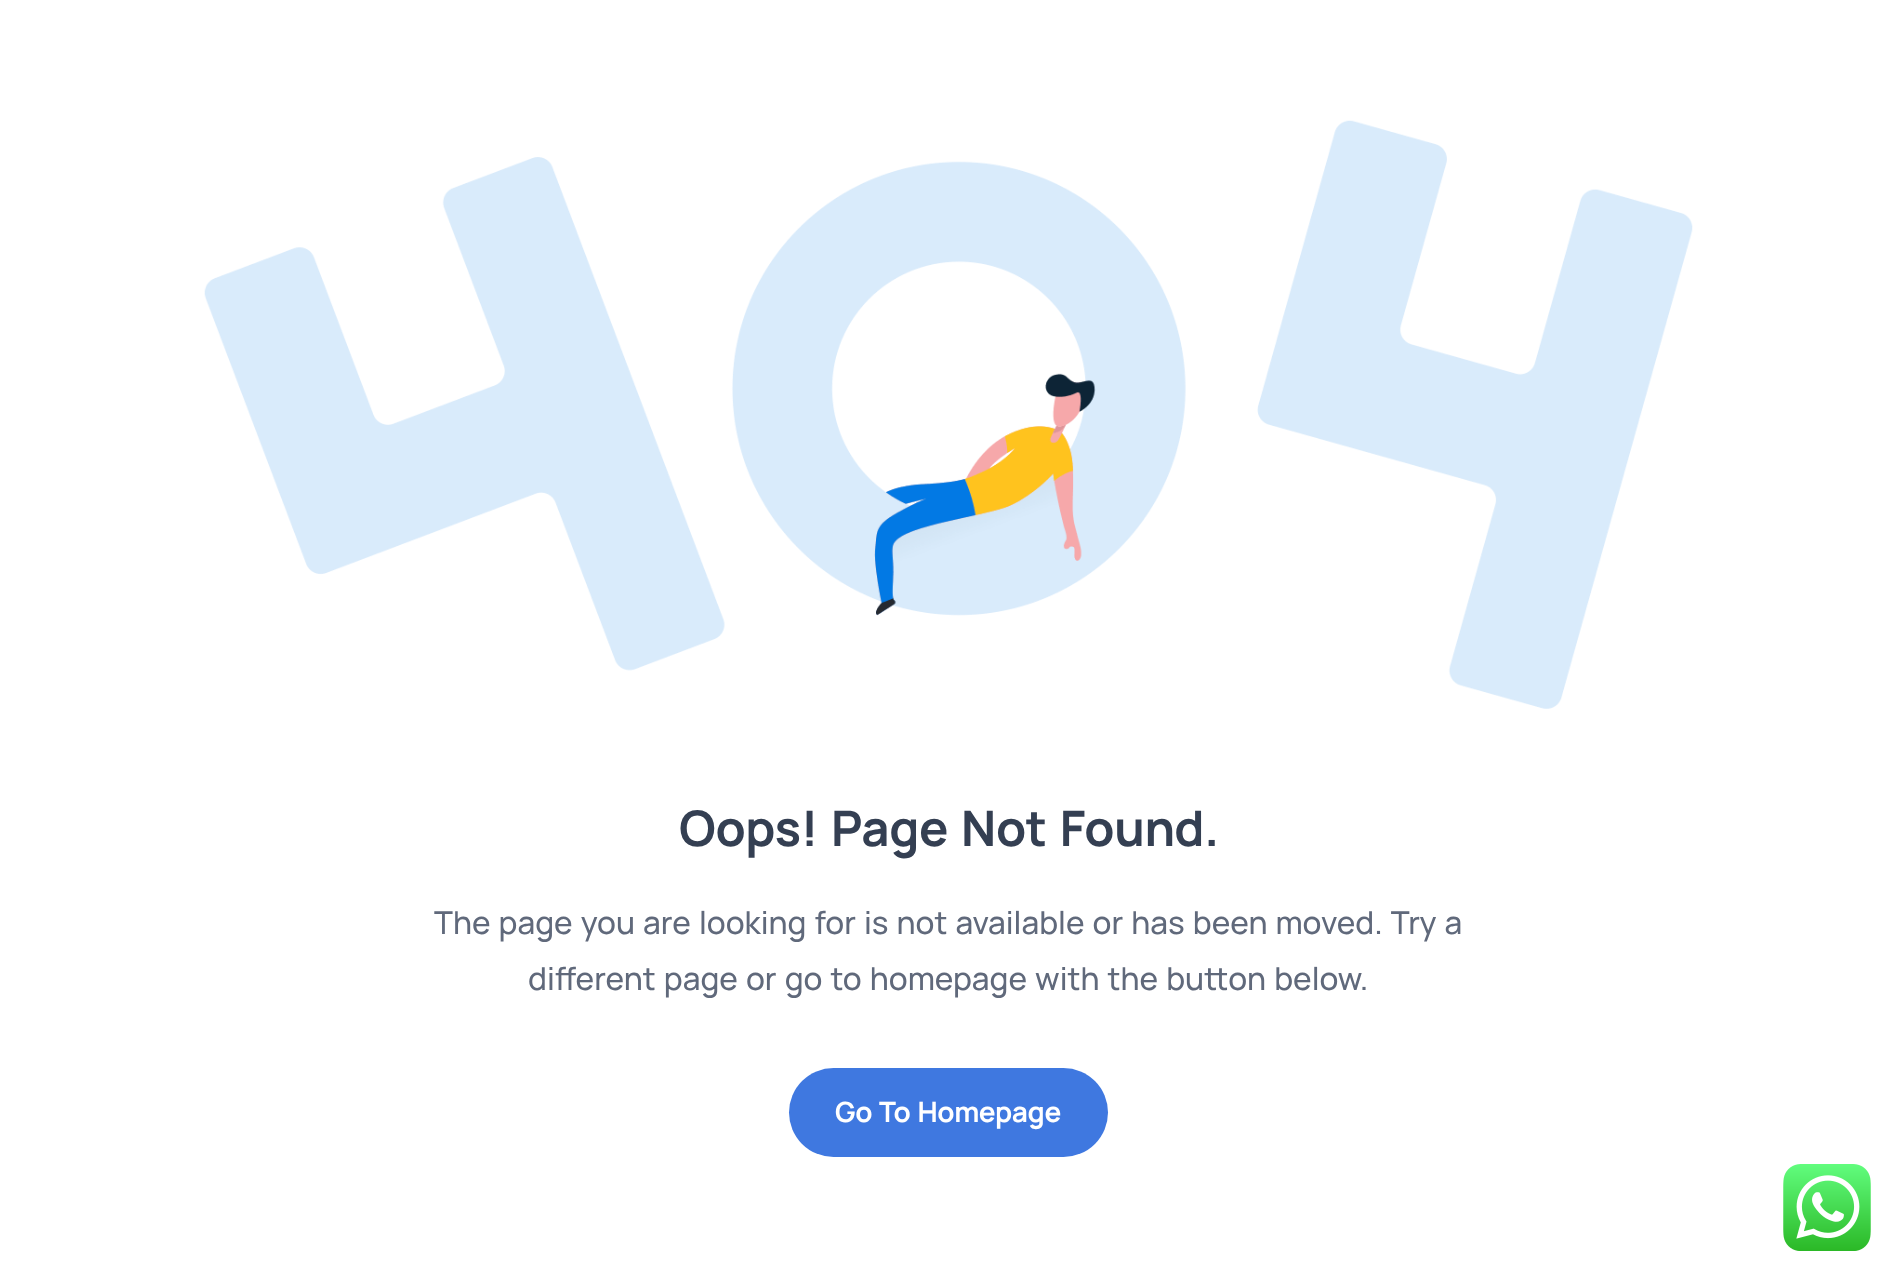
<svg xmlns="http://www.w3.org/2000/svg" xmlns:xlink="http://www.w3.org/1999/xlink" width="1896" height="1277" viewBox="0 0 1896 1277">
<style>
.cls-1{font:bold 49px Manrope;letter-spacing:-0.35px;fill:#343f52}
.cls-2{font:500 31.5px Manrope;fill:#60697b}
.cls-3{font:bold 28px Manrope;letter-spacing:-0.35px;fill:#ffffff}
</style>
<rect width="100%" height="100%" fill="#ffffff"/>
<image xlink:href="image0.png" x="204" y="120" width="1489" height="589"/>
<rect fill="#3f78e0" x="789" y="1068" width="319" height="89" rx="44.5"/>
<image xlink:href="image1.png" x="1783" y="1164" width="88" height="87"/>
<text class="cls-1" x="679" y="846" word-spacing="3.5">Oops! Page Not Found.</text>
<text class="cls-2" x="434" y="934" word-spacing="1.75">The page you are looking for is not available or has been moved. Try a</text>
<text class="cls-2" x="528" y="990" word-spacing="1.75">different page or go to homepage with the button below.</text>
<text class="cls-3" x="835" y="1122" word-spacing="1.75">Go To Homepage</text>
</svg>
